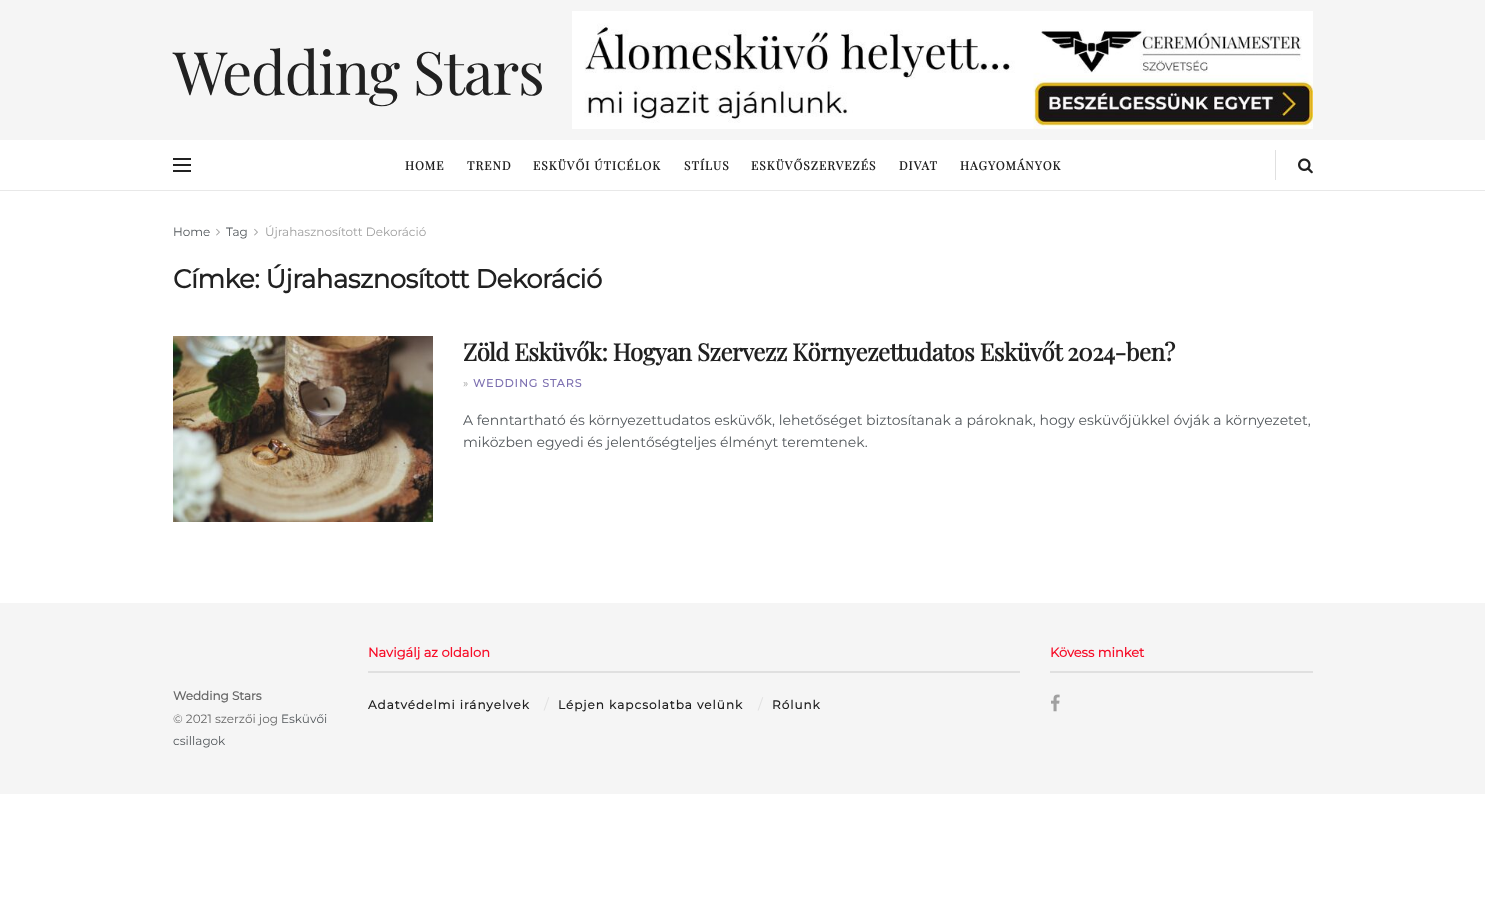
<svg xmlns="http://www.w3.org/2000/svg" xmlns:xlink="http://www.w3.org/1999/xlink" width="1485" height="922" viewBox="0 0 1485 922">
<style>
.cls-1{font:60px Playfair Display;letter-spacing:-1.25px;fill:#212121}
.cls-2{font:bold 12px Playfair Display;letter-spacing:1px;fill:#212121}
.cls-3{font:100 12px Montserrat;fill:#53585c}
.cls-4{font:100 12px Montserrat;fill:#a0a0a0}
.cls-5{font:bold 26px Montserrat;letter-spacing:-0.5px;fill:#212121}
.cls-6{font:bold 24px Playfair Display;letter-spacing:-0.48px;fill:#212121}
.cls-7{font:100 11px Montserrat;letter-spacing:1px;fill:#a0a0a0}
.cls-8{font:bold 11px Montserrat;letter-spacing:1px;fill:#7e71b1}
.cls-9{font:100 14px Montserrat;fill:#53585c}
.cls-10{font:bold 13px Montserrat;fill:#f70d28}
.cls-11{font:bold 12px Montserrat;letter-spacing:1px;fill:#212121}
.cls-12{font:100 14px Montserrat;fill:#e0e0e0}
.cls-13{font:bold 12px Montserrat;fill:#666666}
.cls-14{font:100 12px Montserrat;fill:#666666}
</style>
<rect width="100%" height="100%" fill="#ffffff"/>
<rect fill="#f5f5f5" x="0" y="0" width="1485" height="140"/>
<image xlink:href="image0.png" x="572" y="11" width="741" height="118"/>
<rect fill="#e8e8e8" x="0" y="190" width="1485" height="1"/>
<rect fill="#212121" x="173" y="158" width="18" height="2"/>
<rect fill="#212121" x="173" y="164" width="18" height="2"/>
<rect fill="#212121" x="173" y="170" width="18" height="2"/>
<rect fill="#e0e0e0" x="1275" y="150" width="1" height="30"/>
<image xlink:href="image1.png" x="1298" y="158" width="15" height="16"/>
<image xlink:href="image2.png" x="216" y="228" width="4" height="8"/>
<image xlink:href="image2.png" x="254" y="228" width="4" height="8"/>
<image xlink:href="image3.png" x="173" y="336" width="260" height="186"/>
<rect fill="#f5f5f5" x="0" y="603" width="1485" height="191"/>
<rect fill="#e0e0e0" x="368" y="671" width="652" height="2"/>
<rect fill="#e0e0e0" x="1050" y="671" width="263" height="2"/>
<image xlink:href="image4.png" x="1051" y="694" width="9" height="18"/>
<text class="cls-1" x="173" y="95">Wedding Stars</text>
<text class="cls-2" x="405" y="170">HOME</text>
<text class="cls-2" x="467" y="170">TREND</text>
<text class="cls-2" x="533" y="170">ESKÜVŐI ÚTICÉLOK</text>
<text class="cls-2" x="684" y="170">STÍLUS</text>
<text class="cls-2" x="751" y="170">ESKÜVŐSZERVEZÉS</text>
<text class="cls-2" x="899" y="170">DIVAT</text>
<text class="cls-2" x="960" y="170">HAGYOMÁNYOK</text>
<text class="cls-3" x="173" y="236">Home</text>
<text class="cls-3" x="226" y="236">Tag</text>
<text class="cls-4" x="265" y="236">Újrahasznosított Dekoráció</text>
<text class="cls-5" x="173" y="288">Címke: Újrahasznosított Dekoráció</text>
<text class="cls-6" x="463" y="361">Zöld Esküvők: Hogyan Szervezz Környezettudatos Esküvőt 2024-ben?</text>
<text class="cls-7" x="463" y="387">»</text>
<text class="cls-8" x="473" y="387">WEDDING STARS</text>
<text class="cls-9"><tspan x="463" y="425">A fenntartható és környezettudatos esküvők, lehetőséget biztosítanak a pároknak, hogy esküvőjükkel óvják a környezetet,</tspan><tspan x="463" y="447">miközben egyedi és jelentőségteljes élményt teremtenek.</tspan></text>
<text class="cls-10" x="368" y="657">Navigálj az oldalon</text>
<text class="cls-11" x="368" y="709">Adatvédelmi irányelvek</text>
<text class="cls-12" x="544" y="709">/</text>
<text class="cls-11" x="558" y="709">Lépjen kapcsolatba velünk</text>
<text class="cls-12" x="758" y="709">/</text>
<text class="cls-11" x="772" y="709">Rólunk</text>
<text class="cls-10" x="1050" y="657">Kövess minket</text>
<text class="cls-13" x="173" y="700">Wedding Stars</text>
<text class="cls-14" x="173" y="723">© 2021 szerzői jog</text>
<text class="cls-3" x="281" y="723">Esküvői</text>
<text class="cls-3" x="173" y="745">csillagok</text>
</svg>
